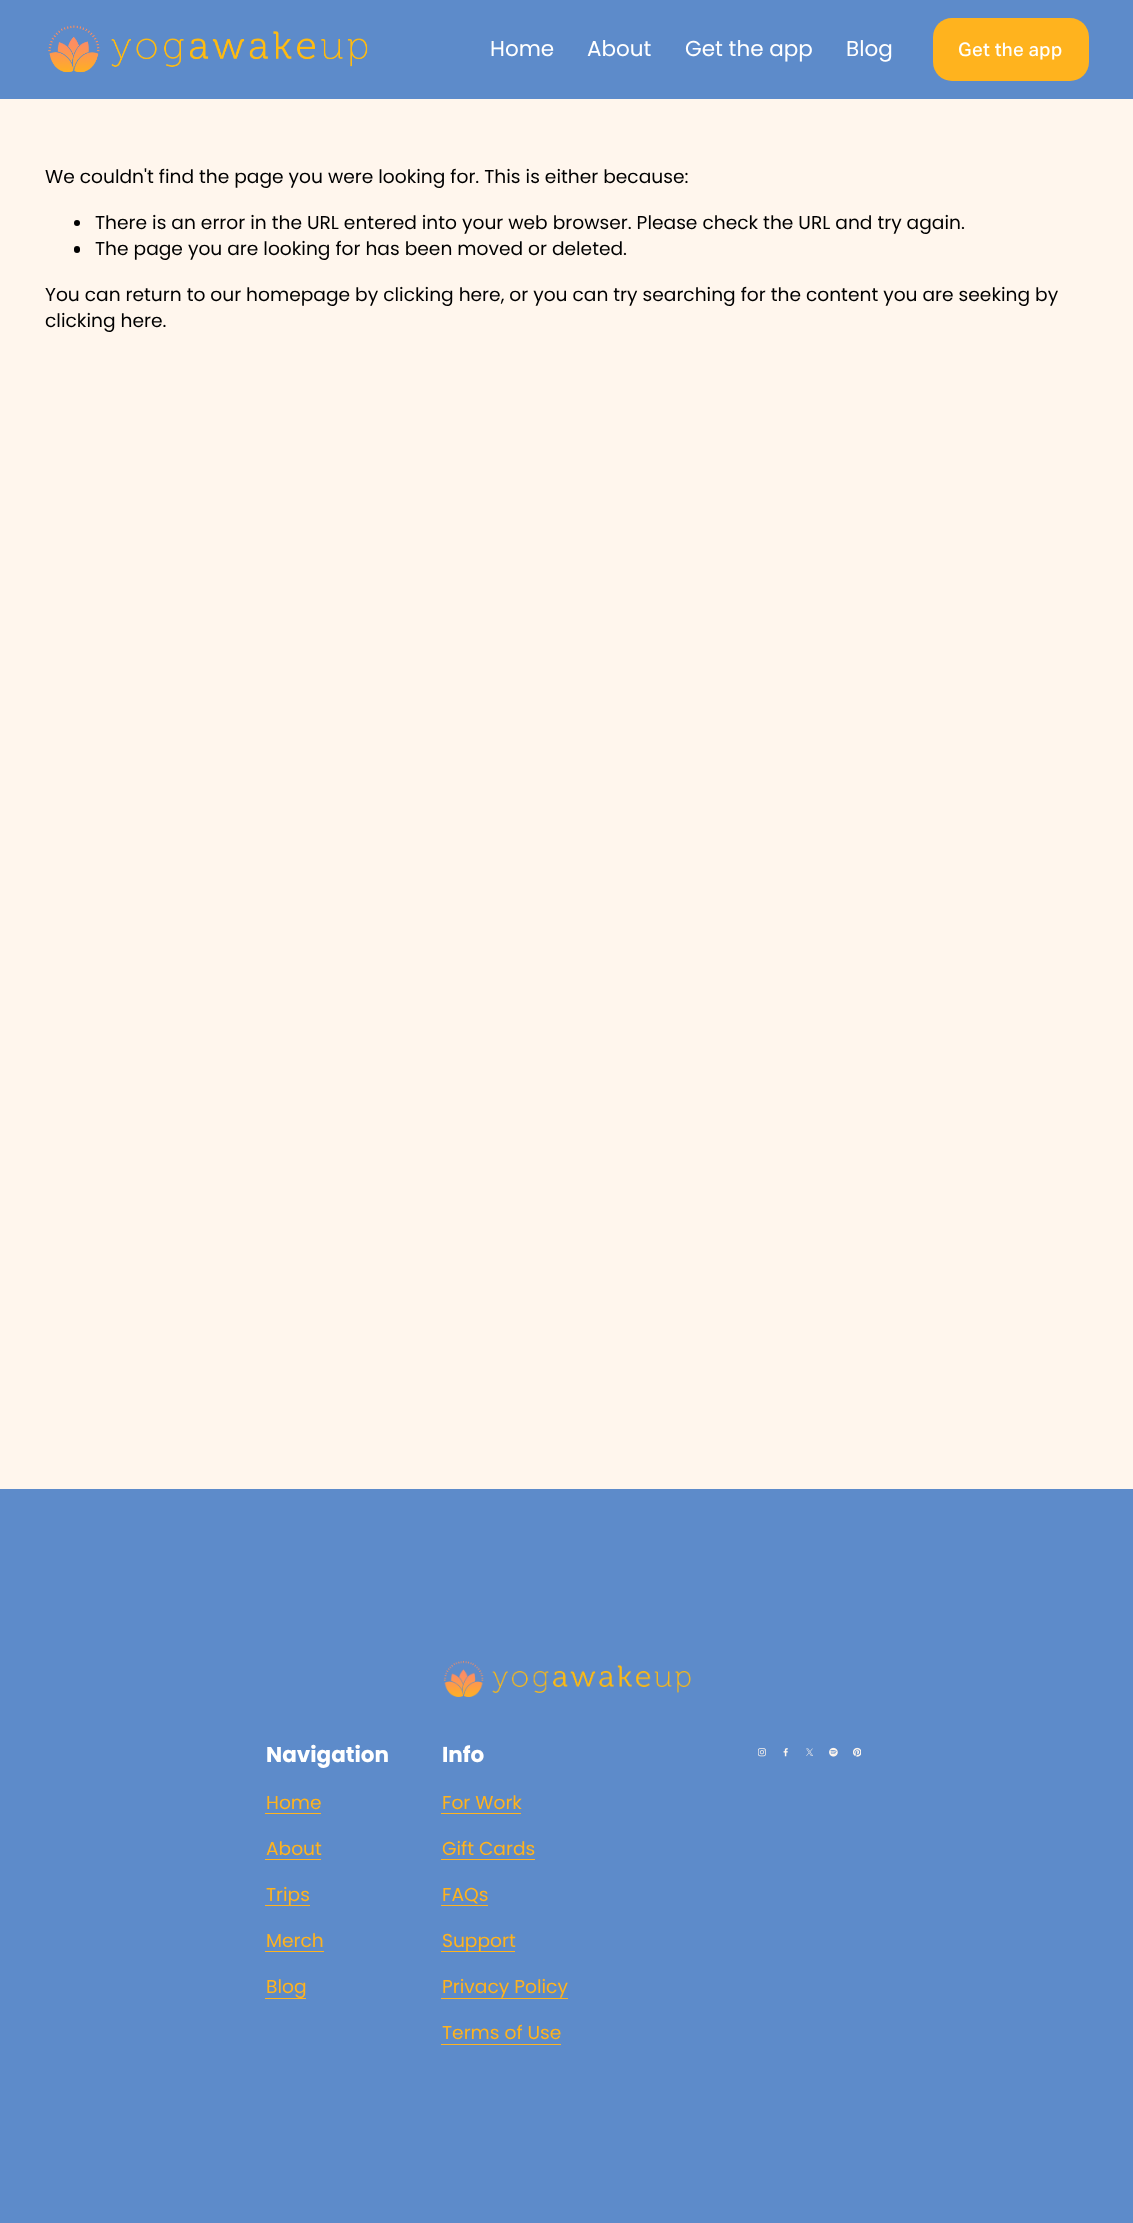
<svg xmlns="http://www.w3.org/2000/svg" xmlns:xlink="http://www.w3.org/1999/xlink" width="1133" height="2223" viewBox="0 0 1133 2223">
<style>
.cls-1{font:21.5px Poppins;fill:#ffffff}
.cls-2{font:500 18.65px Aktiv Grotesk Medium;letter-spacing:0.4px;fill:#ffffff}
.cls-3{font:18.65px Poppins;fill:#000000}
.cls-4{font:bold 21.5px Poppins;fill:#ffffff}
.cls-5{font:18.65px Poppins;fill:#ffb31e}
</style>
<rect width="100%" height="100%" fill="#fff6ed"/>
<rect fill="#5d8bca" x="0" y="0" width="1133" height="99"/>
<image xlink:href="image0.png" x="48" y="25" width="320" height="48"/>
<rect fill="#ffb31e" x="933" y="18" width="156" height="63" rx="19"/>
<circle fill="#000000" cx="77" cy="223" r="3"/>
<rect fill="#000000" x="74" y="246" width="6" height="7" rx="3"/>
<rect fill="#5d8bca" x="0" y="1489" width="1133" height="734"/>
<image xlink:href="image1.png" x="443" y="1661" width="248" height="36"/>
<rect fill="#ffb31e" x="265" y="1813" width="56" height="1"/>
<rect fill="#ffb31e" x="265" y="1859" width="56" height="1"/>
<rect fill="#ffb31e" x="265" y="1905" width="45" height="1"/>
<rect fill="#ffb31e" x="265" y="1951" width="59" height="1"/>
<rect fill="#ffb31e" x="265" y="1998" width="41" height="1"/>
<rect fill="#ffb31e" x="441" y="1813" width="80" height="1"/>
<rect fill="#ffb31e" x="441" y="1859" width="94" height="1"/>
<rect fill="#ffb31e" x="441" y="1905" width="47" height="1"/>
<rect fill="#ffb31e" x="441" y="1951" width="74" height="1"/>
<rect fill="#ffb31e" x="441" y="1998" width="127" height="1"/>
<rect fill="#ffb31e" x="441" y="2044" width="120" height="1"/>
<image xlink:href="image2.png" x="758" y="1748" width="8" height="9"/>
<image xlink:href="image3.png" x="783" y="1748" width="5" height="9"/>
<image xlink:href="image4.png" x="806" y="1748" width="7" height="8"/>
<image xlink:href="image5.png" x="829" y="1747" width="9" height="10"/>
<image xlink:href="image6.png" x="853" y="1747" width="8" height="10"/>
<text class="cls-1" x="490" y="56">Home</text>
<text class="cls-1" x="587" y="56">About</text>
<text class="cls-1" x="685" y="56">Get the app</text>
<text class="cls-1" x="846" y="56">Blog</text>
<text class="cls-2" x="958" y="56">Get the app</text>
<text class="cls-3" x="45" y="183">We couldn't find the page you were looking for. This is either because:</text>
<text class="cls-3"><tspan x="95" y="229">There is an error in the URL entered into your web browser. Please check the URL and try again.</tspan><tspan x="95" y="255">The page you are looking for has been moved or deleted.</tspan></text>
<text class="cls-3"><tspan x="45" y="301">You can return to our homepage by clicking here, or you can try searching for the content you are seeking by</tspan><tspan x="45" y="327">clicking here.</tspan></text>
<text class="cls-4" x="266" y="1762">Navigation</text>
<text class="cls-5" x="266" y="1809">Home</text>
<text class="cls-5" x="266" y="1855">About</text>
<text class="cls-5" x="266" y="1901">Trips</text>
<text class="cls-5" x="266" y="1947">Merch</text>
<text class="cls-5" x="266" y="1993">Blog</text>
<text class="cls-4" x="442" y="1762">Info</text>
<text class="cls-5" x="442" y="1809">For Work</text>
<text class="cls-5" x="442" y="1855">Gift Cards</text>
<text class="cls-5" x="442" y="1901">FAQs</text>
<text class="cls-5" x="442" y="1947">Support</text>
<text class="cls-5" x="442" y="1993">Privacy Policy</text>
<text class="cls-5" x="442" y="2039">Terms of Use</text>
</svg>
